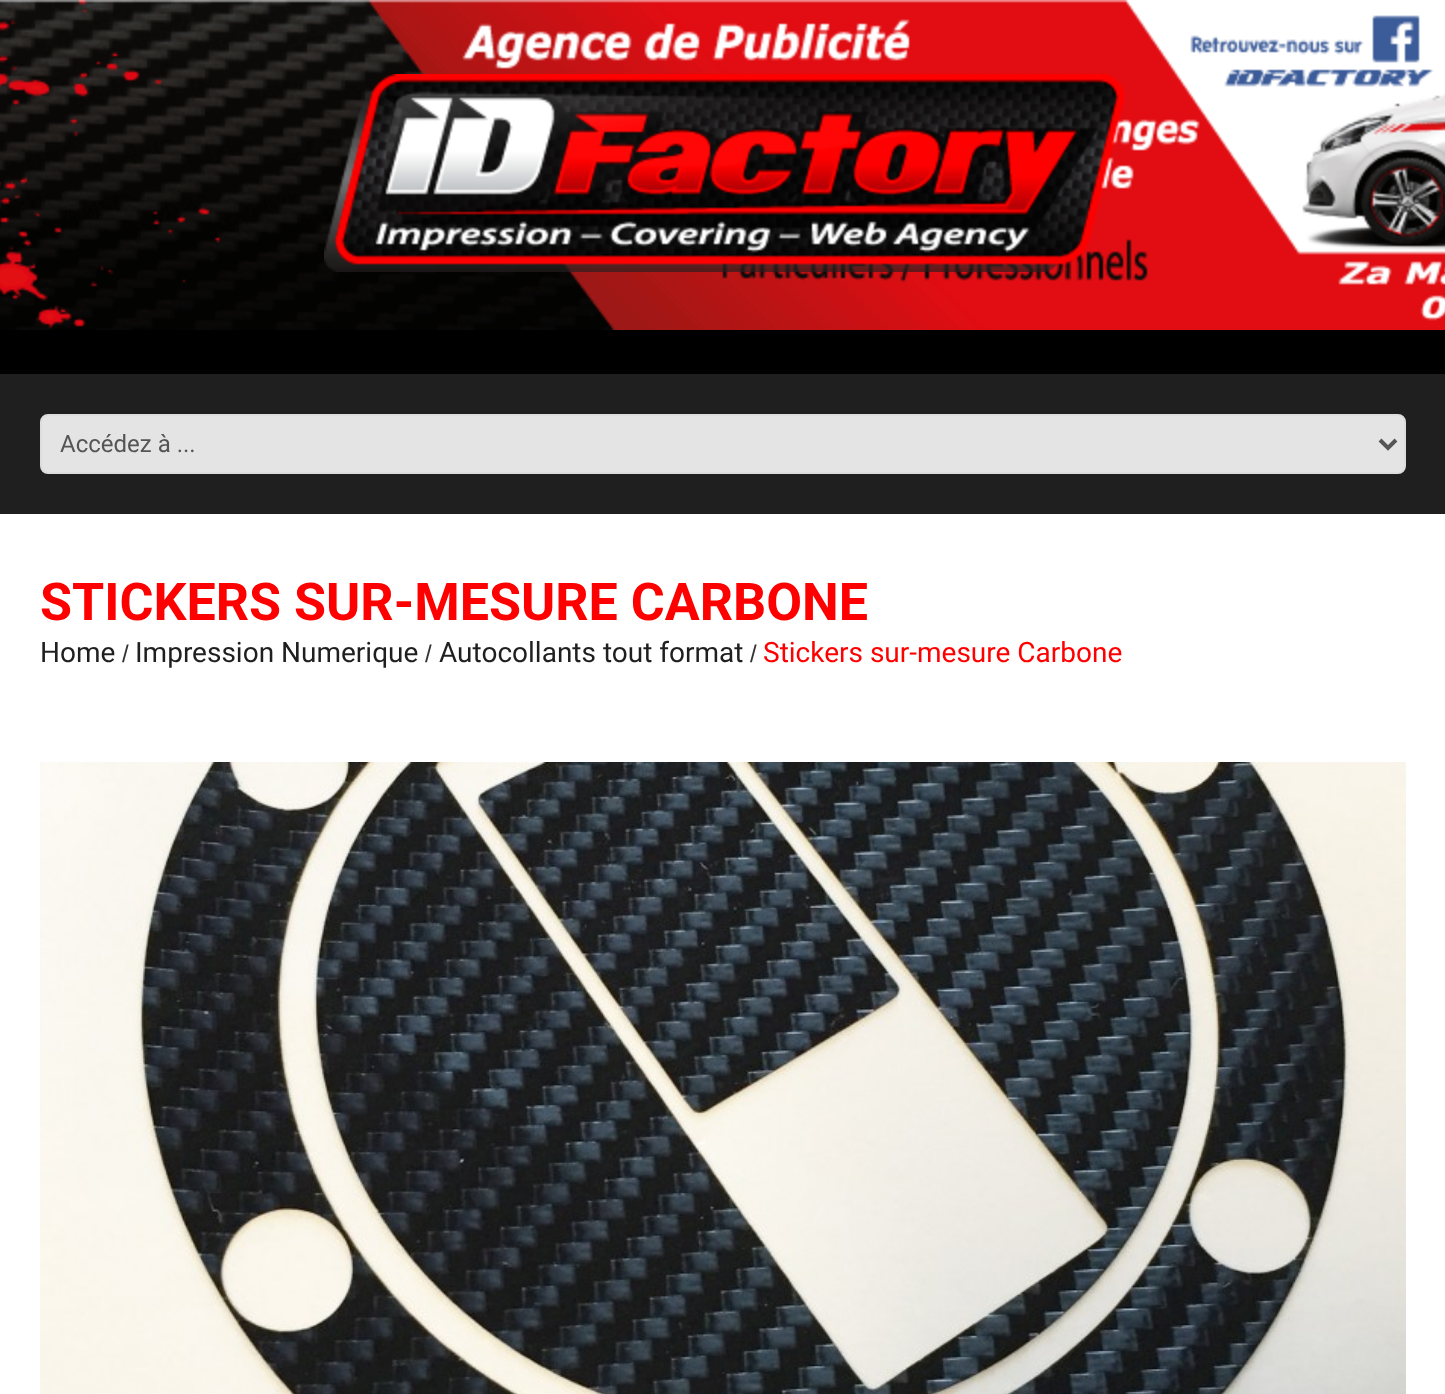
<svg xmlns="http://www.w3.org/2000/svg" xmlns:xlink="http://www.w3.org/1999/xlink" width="1445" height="1394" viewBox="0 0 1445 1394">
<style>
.cls-1{font:24px Roboto;fill:#555555}
.cls-2{font:bold 52px Roboto;fill:#ff0000}
.cls-3{font:28px Roboto;fill:#1f1f1f}
.cls-4{font:24px Liberation Sans;fill:#333333}
.cls-5{font:28px Roboto;fill:#ff0000}
</style>
<rect width="100%" height="100%" fill="#000000"/>
<image xlink:href="image0.png" x="0" y="0" width="1445" height="330"/>
<image xlink:href="image1.png" x="324" y="74" width="800" height="198"/>
<rect fill="#1f1f1f" x="0" y="374" width="1445" height="140"/>
<rect fill="#e4e4e4" stroke="#dddddd" stroke-width="2" x="41" y="415" width="1364" height="58" rx="7"/>
<path fill="none" stroke="#555555" stroke-width="4" d="M1380 440L1388 448L1396 440"/>
<rect fill="#ffffff" x="0" y="514" width="1445" height="880"/>
<image xlink:href="image2.png" x="40" y="762" width="1366" height="632"/>
<text class="cls-1" x="60" y="452">Accédez à ...</text>
<text class="cls-2" x="40" y="620">STICKERS SUR-MESURE CARBONE</text>
<text class="cls-3" x="40" y="662">Home</text>
<text class="cls-4" x="122" y="662">/</text>
<text class="cls-3" x="135" y="662">Impression Numerique</text>
<text class="cls-4" x="425" y="662">/</text>
<text class="cls-3" x="439" y="662">Autocollants tout format</text>
<text class="cls-4" x="750" y="662">/</text>
<text class="cls-5" x="763" y="662">Stickers sur-mesure Carbone</text>
</svg>
